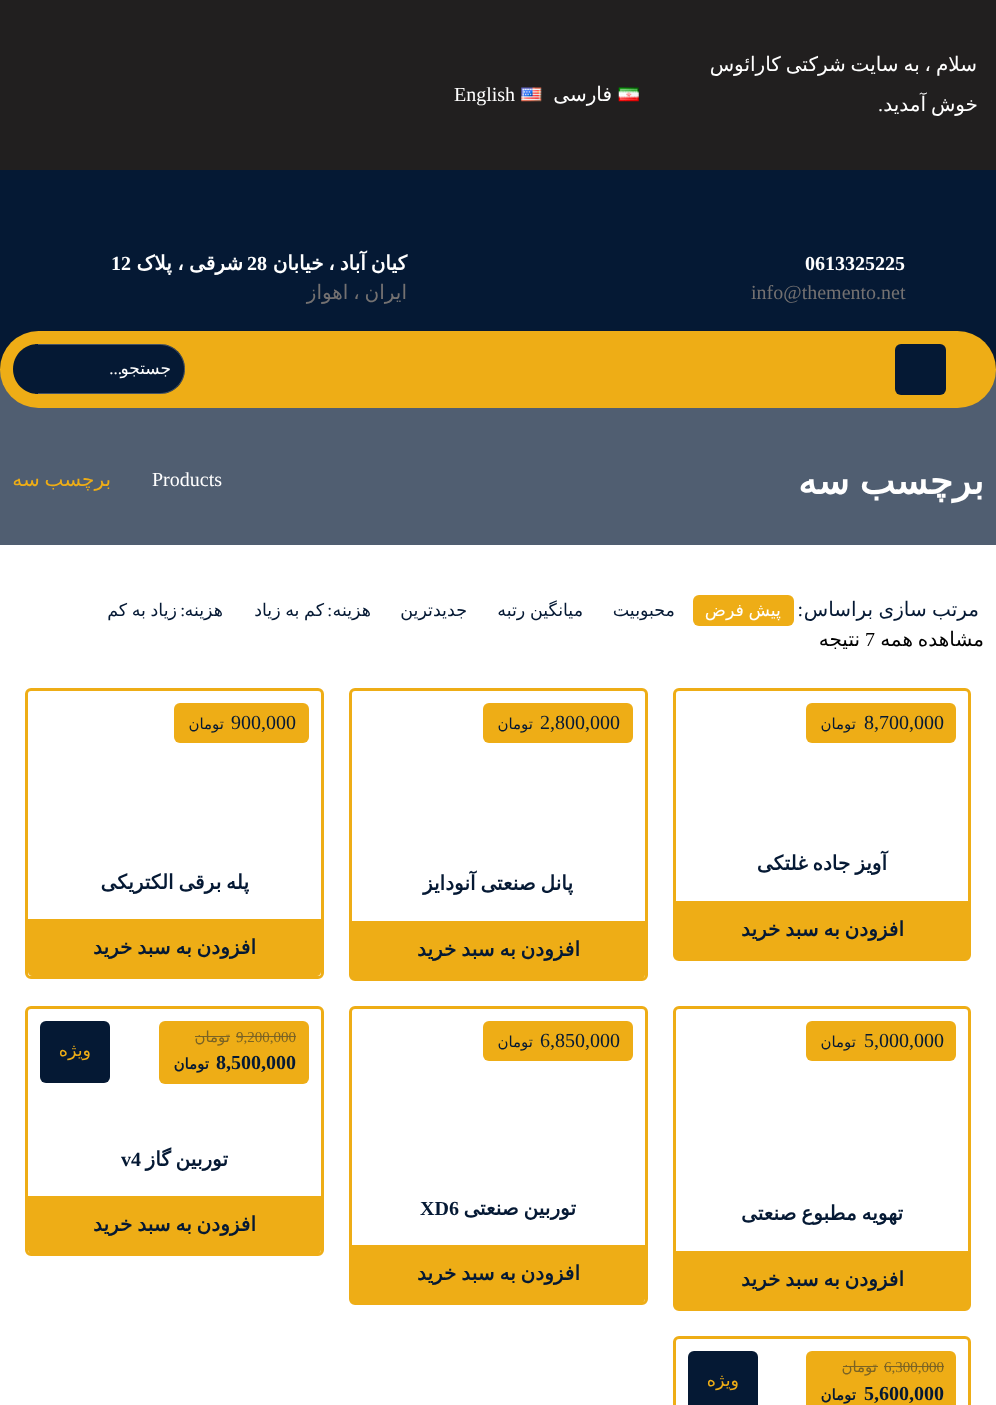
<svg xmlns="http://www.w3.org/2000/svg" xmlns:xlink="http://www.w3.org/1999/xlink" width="996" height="1405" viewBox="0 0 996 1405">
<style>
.cls-1{font:20px DejaVu Sans;direction:rtl;fill:#ffffff}
.cls-2{font:20px Liberation Serif;direction:rtl;fill:#ffffff}
.cls-3{font:20px Liberation Serif;fill:#ffffff}
.cls-4{font:bold 20px Liberation Serif;fill:#ffffff}
.cls-5{font:20px Liberation Serif;fill:#747171}
.cls-6{font:bold 20px DejaVu Sans;direction:rtl;fill:#ffffff}
.cls-7{font:20px DejaVu Sans;direction:rtl;fill:#747171}
.cls-8{font:17px DejaVu Sans;direction:rtl;fill:#ffffff}
.cls-9{font:17px Liberation Serif;direction:rtl;fill:#ffffff}
.cls-10{font:bold 37.5px DejaVu Sans;direction:rtl;fill:#ffffff}
.cls-11{font:20px DejaVu Sans;direction:rtl;fill:#eead16}
.cls-12{font:20px DejaVu Sans;direction:rtl;fill:#051934}
.cls-13{font:20px Liberation Serif;direction:rtl;fill:#051934}
.cls-14{font:17.5px DejaVu Sans;direction:rtl;fill:#ffffff}
.cls-15{font:17.5px DejaVu Sans;direction:rtl;fill:#051934}
.cls-16{font:17.5px Liberation Serif;direction:rtl;fill:#051934}
.cls-17{font:20px DejaVu Sans;direction:rtl;fill:#000000}
.cls-18{font:20px Liberation Serif;fill:#000000}
.cls-19{font:20px Liberation Serif;fill:#051934}
.cls-20{font:15px DejaVu Sans;direction:rtl;fill:#051934}
.cls-21{font:bold 20px DejaVu Sans;direction:rtl;fill:#051934}
.cls-22{font:bold 20px Liberation Serif;fill:#051934}
.cls-23{font:15px Liberation Serif;fill:#7a6325}
.cls-24{font:15px DejaVu Sans;direction:rtl;fill:#7a6325}
.cls-25{font:bold 15px DejaVu Sans;direction:rtl;fill:#051934}
.cls-26{font:17.5px DejaVu Sans;direction:rtl;fill:#eead16}
</style>
<rect width="100%" height="100%" fill="#ffffff"/>
<rect fill="#211f1f" x="0" y="0" width="996" height="170"/>
<image xlink:href="image0.png" x="618" y="87" width="21" height="15"/>
<image xlink:href="image1.png" x="521" y="87" width="21" height="15"/>
<rect fill="#051934" x="0" y="170" width="996" height="199"/>
<rect fill="#505e71" x="0" y="370" width="996" height="175"/>
<rect fill="#eead16" x="0" y="331" width="996" height="77" rx="38.5"/>
<rect fill="#051934" x="895" y="344" width="51" height="51" rx="6"/>
<path fill="#051934" d="M35 344H160C174 344 185 355 185 369C185 383 174 394 160 394H35Z"/>
<path fill="none" stroke="#a7a7a7" stroke-opacity="0.4" d="M35.5 344.5H160C173.5 344.5 184.5 355.5 184.5 369C184.5 382.5 173.5 393.5 160 393.5H35.5Z"/>
<path fill="#051934" d="M38 344V394C24 394 13 383 13 369C13 355 24 344 38 344Z"/>
<rect fill="#eead16" x="693" y="595" width="101" height="31" rx="6"/>
<rect fill="none" stroke="#eead16" stroke-width="3" x="674.5" y="689.5" width="295" height="270" rx="4.5"/>
<rect fill="#eead16" x="806" y="703" width="150" height="40" rx="6"/>
<path fill="#eead16" d="M675 901H969V955C969 957 967 959 965 959H679C677 959 675 957 675 955Z"/>
<rect fill="none" stroke="#eead16" stroke-width="3" x="350.5" y="689.5" width="296" height="290" rx="4.5"/>
<rect fill="#eead16" x="483" y="703" width="150" height="40" rx="6"/>
<path fill="#eead16" d="M351 921H645V975C645 977 643 979 641 979H355C353 979 351 977 351 975Z"/>
<rect fill="none" stroke="#eead16" stroke-width="3" x="26.5" y="689.5" width="296" height="288" rx="4.5"/>
<rect fill="#eead16" x="174" y="703" width="135" height="40" rx="6"/>
<path fill="#eead16" d="M28 919H321V972C321 974 319 976 317 976H32C30 976 28 974 28 972Z"/>
<rect fill="none" stroke="#eead16" stroke-width="3" x="674.5" y="1007.5" width="295" height="302" rx="4.5"/>
<rect fill="#eead16" x="806" y="1021" width="150" height="40" rx="6"/>
<path fill="#eead16" d="M675 1251H969V1305C969 1307 967 1309 965 1309H679C677 1309 675 1307 675 1305Z"/>
<rect fill="none" stroke="#eead16" stroke-width="3" x="350.5" y="1007.5" width="296" height="296" rx="4.5"/>
<rect fill="#eead16" x="483" y="1021" width="150" height="40" rx="6"/>
<path fill="#eead16" d="M351 1245H645V1299C645 1301 643 1303 641 1303H355C353 1303 351 1301 351 1299Z"/>
<rect fill="none" stroke="#eead16" stroke-width="3" x="26.5" y="1007.5" width="296" height="247" rx="4.5"/>
<rect fill="#eead16" x="159" y="1021" width="150" height="63" rx="6"/>
<rect fill="#7a6325" x="236" y="1036" width="60" height="1"/>
<rect fill="#7a6325" x="195" y="1036" width="35" height="1"/>
<rect fill="#051934" x="40" y="1021" width="70" height="62" rx="6"/>
<path fill="#eead16" d="M28 1196H321V1250C321 1252 319 1254 317 1254H32C30 1254 28 1252 28 1250Z"/>
<rect fill="none" stroke="#eead16" stroke-width="3" x="674.5" y="1337.5" width="295" height="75" rx="4.5"/>
<rect fill="#eead16" x="806" y="1351" width="150" height="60" rx="6"/>
<rect fill="#7a6325" x="884" y="1366" width="60" height="1"/>
<rect fill="#7a6325" x="843" y="1366" width="35" height="1"/>
<rect fill="#051934" x="688" y="1351" width="70" height="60" rx="6"/>
<text class="cls-1" x="977" y="71" word-spacing="-1.5">سلام ، به سایت شرکتی کارائوس</text>
<text class="cls-1" x="978" y="111" word-spacing="-1.5">خوش آمدید</text>
<text class="cls-2" x="883" y="111">.</text>
<text class="cls-1" x="612" y="101">فارسی</text>
<text class="cls-3" x="454" y="101">English</text>
<text class="cls-4" x="805" y="270">0613325225</text>
<text class="cls-5" x="751" y="299">info@themento.net</text>
<text class="cls-6" x="407" y="270" word-spacing="-1.5">کیان آباد ، خیابان</text>
<text class="cls-4" x="247" y="270">28</text>
<text class="cls-6" x="243" y="270" word-spacing="-1">شرقی ، پلاک</text>
<text class="cls-4" x="111" y="270">12</text>
<text class="cls-7" x="407" y="299" word-spacing="-1.5">ایران ، اهواز</text>
<text class="cls-8" x="171" y="374">جستجو</text>
<text class="cls-9" x="122" y="374">...</text>
<text class="cls-10" x="984" y="494" word-spacing="-2">برچسب سه</text>
<text class="cls-3" x="152" y="486">Products</text>
<text class="cls-11" x="111" y="486" word-spacing="-1.5">برچسب سه</text>
<text class="cls-12" x="979" y="616" word-spacing="-1">مرتب سازی براساس</text>
<text class="cls-13" x="803" y="616">:</text>
<text class="cls-14" x="781" y="616" word-spacing="-1">پیش فرض</text>
<text class="cls-15" x="675" y="616">محبوبیت</text>
<text class="cls-15" x="583" y="616" word-spacing="-1">میانگین رتبه</text>
<text class="cls-15" x="467" y="616">جدیدترین</text>
<text class="cls-15" x="371" y="616">هزینه</text>
<text class="cls-16" x="332" y="616">:</text>
<text class="cls-15" x="324" y="616" word-spacing="-1">کم به زیاد</text>
<text class="cls-15" x="223" y="616">هزینه</text>
<text class="cls-16" x="185" y="616">:</text>
<text class="cls-15" x="177" y="616" word-spacing="-1">زیاد به کم</text>
<text class="cls-17" x="984" y="646" word-spacing="-1.5">مشاهده همه</text>
<text class="cls-18" x="865" y="646">7</text>
<text class="cls-17" x="860" y="646">نتیجه</text>
<text class="cls-19" x="864" y="729">8,700,000</text>
<text class="cls-20" x="856" y="729">تومان</text>
<text class="cls-21" x="887" y="870" word-spacing="-1.5">آویز جاده غلتکی</text>
<text class="cls-21" x="904" y="936" word-spacing="-1.5">افزودن به سبد خرید</text>
<text class="cls-19" x="540" y="729">2,800,000</text>
<text class="cls-20" x="533" y="729">تومان</text>
<text class="cls-21" x="573" y="890" word-spacing="-1.5">پانل صنعتی آنودایز</text>
<text class="cls-21" x="580" y="956" word-spacing="-1.5">افزودن به سبد خرید</text>
<text class="cls-19" x="231" y="729">900,000</text>
<text class="cls-20" x="224" y="729">تومان</text>
<text class="cls-21" x="249" y="889" word-spacing="-1.5">پله برقی الکتریکی</text>
<text class="cls-21" x="256" y="954" word-spacing="-1.5">افزودن به سبد خرید</text>
<text class="cls-19" x="864" y="1047">5,000,000</text>
<text class="cls-20" x="856" y="1047">تومان</text>
<text class="cls-21" x="903" y="1220" word-spacing="-1.5">تهویه مطبوع صنعتی</text>
<text class="cls-21" x="904" y="1286" word-spacing="-1.5">افزودن به سبد خرید</text>
<text class="cls-19" x="540" y="1047">6,850,000</text>
<text class="cls-20" x="533" y="1047">تومان</text>
<text class="cls-21" x="576" y="1215" word-spacing="-1.5">توربین صنعتی</text>
<text class="cls-22" x="420" y="1215">XD6</text>
<text class="cls-21" x="580" y="1280" word-spacing="-1.5">افزودن به سبد خرید</text>
<text class="cls-23" x="236" y="1042">9,200,000</text>
<text class="cls-24" x="230" y="1042">تومان</text>
<text class="cls-22" x="216" y="1069">8,500,000</text>
<text class="cls-25" x="209" y="1069">تومان</text>
<text class="cls-26" x="91" y="1056">ویژه</text>
<text class="cls-21" x="228" y="1166" word-spacing="-1.5">توربین گاز</text>
<text class="cls-22" x="121" y="1166">v4</text>
<text class="cls-21" x="256" y="1231" word-spacing="-1.5">افزودن به سبد خرید</text>
<text class="cls-23" x="884" y="1372">6,300,000</text>
<text class="cls-24" x="877" y="1372">تومان</text>
<text class="cls-22" x="864" y="1400">5,600,000</text>
<text class="cls-25" x="856" y="1400">تومان</text>
<text class="cls-26" x="739" y="1386">ویژه</text>
</svg>
